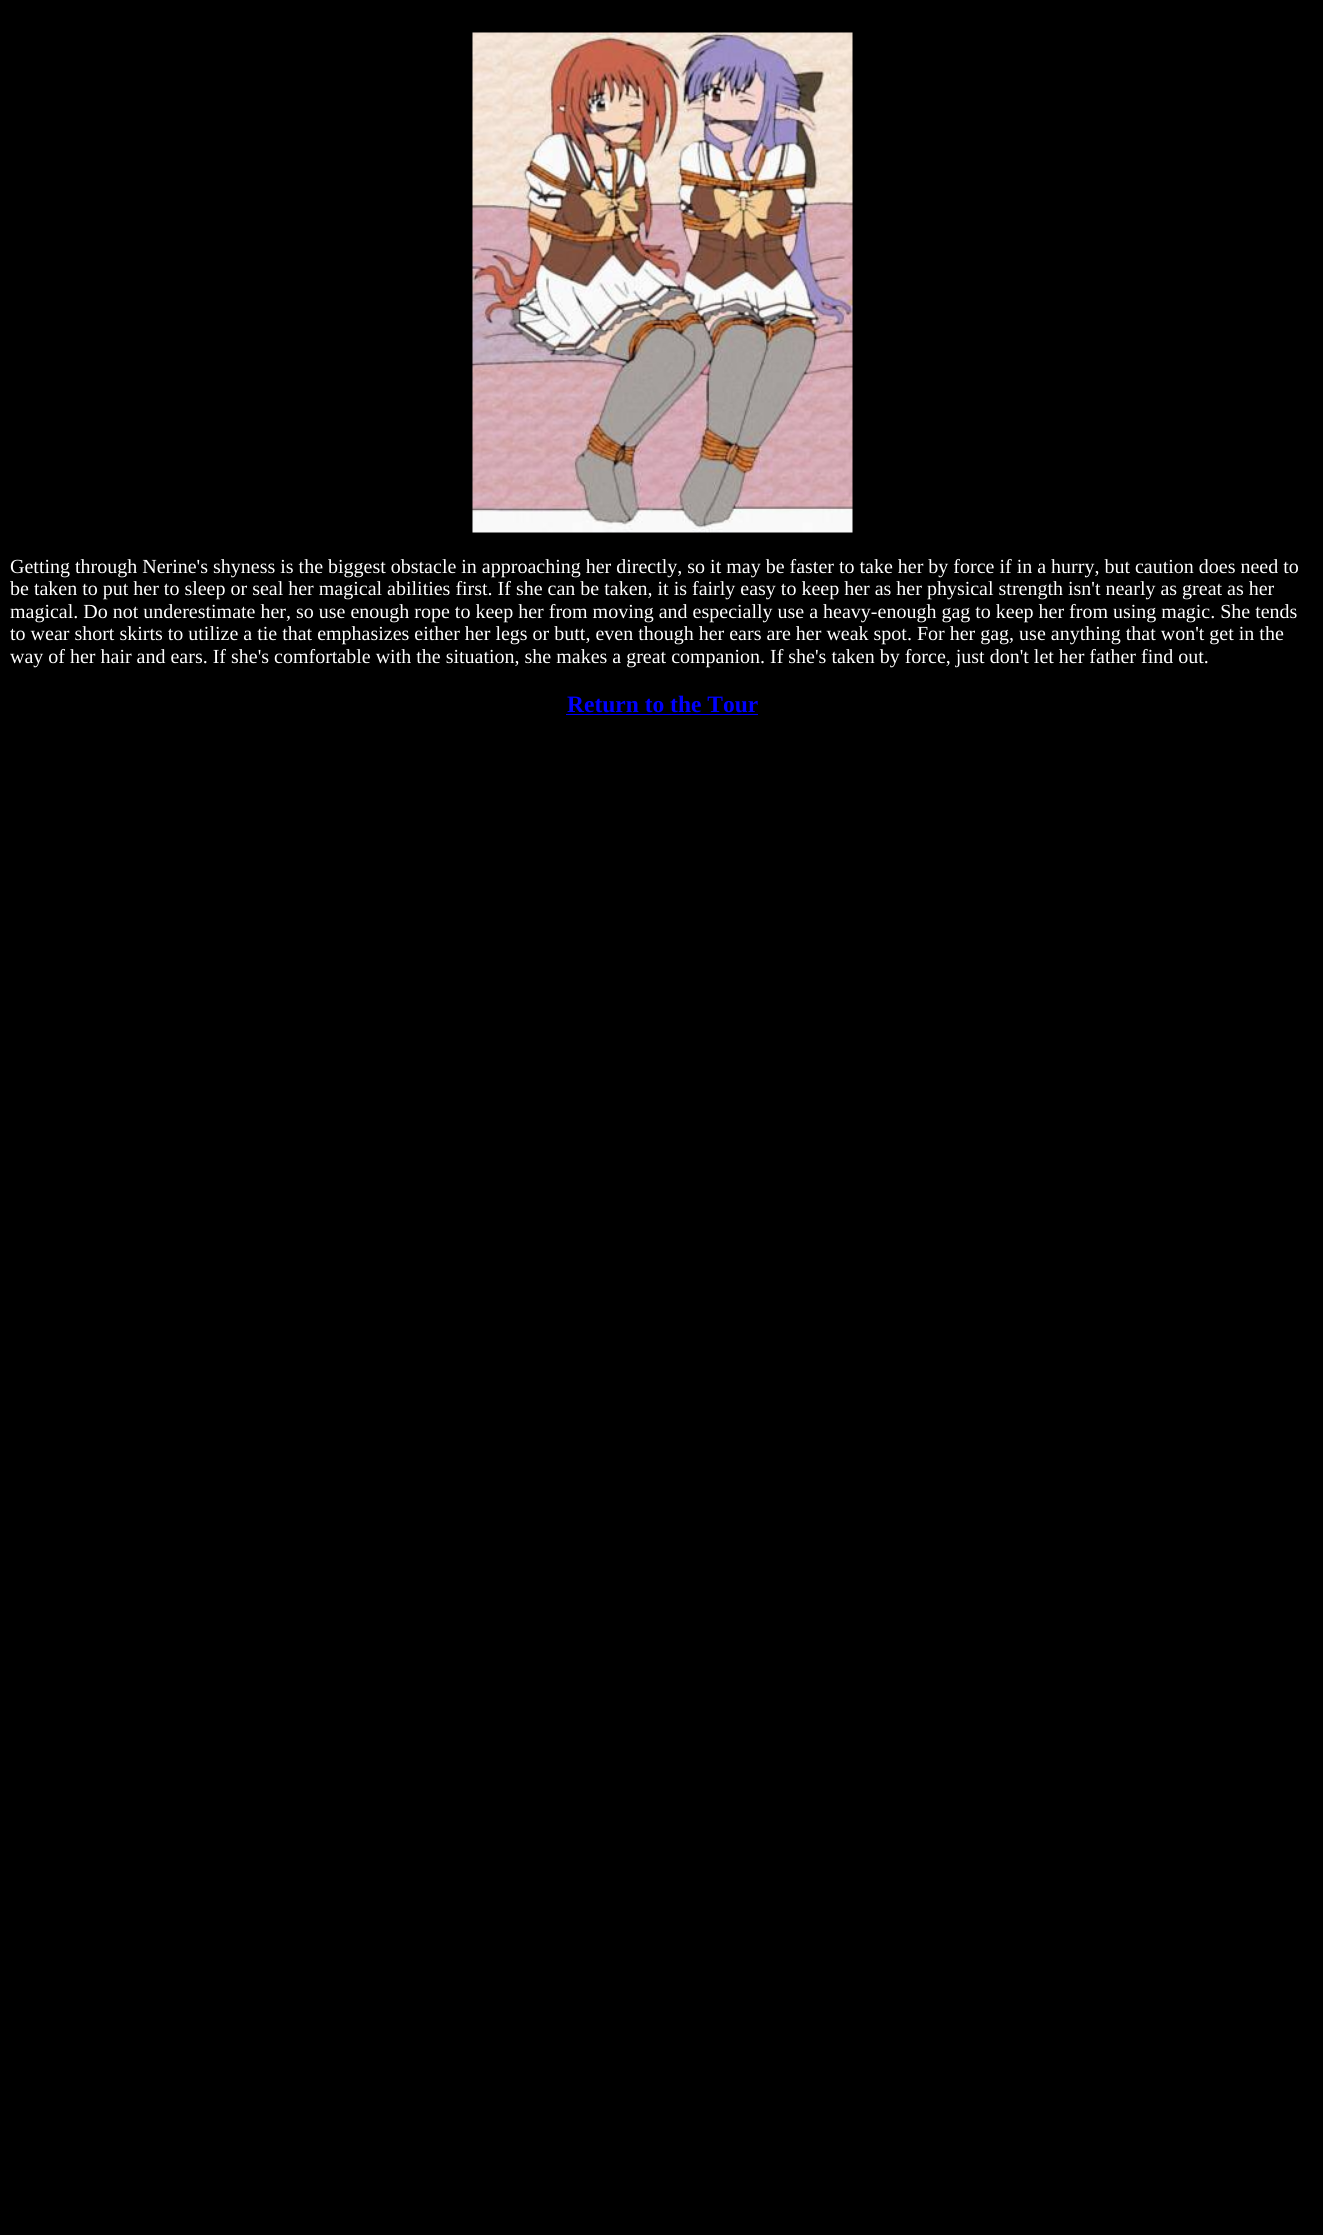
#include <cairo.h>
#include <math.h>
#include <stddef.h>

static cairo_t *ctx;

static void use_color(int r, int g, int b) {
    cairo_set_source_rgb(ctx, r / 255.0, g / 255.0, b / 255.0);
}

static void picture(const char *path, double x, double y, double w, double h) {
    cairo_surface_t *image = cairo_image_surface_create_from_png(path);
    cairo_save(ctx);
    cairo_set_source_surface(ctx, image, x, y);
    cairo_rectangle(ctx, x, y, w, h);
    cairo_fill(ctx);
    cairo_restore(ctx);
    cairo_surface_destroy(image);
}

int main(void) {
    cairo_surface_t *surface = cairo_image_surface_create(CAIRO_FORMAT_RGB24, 1323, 2235);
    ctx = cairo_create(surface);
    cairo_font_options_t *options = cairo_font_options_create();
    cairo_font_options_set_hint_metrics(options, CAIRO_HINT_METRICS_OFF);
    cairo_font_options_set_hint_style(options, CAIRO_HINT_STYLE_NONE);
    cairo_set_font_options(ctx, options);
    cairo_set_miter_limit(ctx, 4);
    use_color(0, 0, 0);
    cairo_paint(ctx);
    picture("img1.png", 472, 32, 381, 501);
    cairo_select_font_face(ctx, "Liberation Serif", CAIRO_FONT_SLANT_NORMAL, CAIRO_FONT_WEIGHT_NORMAL);
    cairo_set_font_size(ctx, 20);
    use_color(255, 255, 255);
    cairo_move_to(ctx, 10, 573);
    cairo_show_text(ctx, "Getting through Nerine's shyness is the biggest obstacle in approaching her directly, so it may be faster to take her by force if in a hurry, but caution does need to");
    cairo_move_to(ctx, 10, 595);
    cairo_show_text(ctx, "be taken to put her to sleep or seal her magical abilities first. If she can be taken, it is fairly easy to keep her as her physical strength isn't nearly as great as her");
    cairo_move_to(ctx, 10, 618);
    cairo_show_text(ctx, "magical. Do not underestimate her, so use enough rope to keep her from moving and especially use a heavy-enough gag to keep her from using magic. She tends");
    cairo_move_to(ctx, 10, 640);
    cairo_show_text(ctx, "to wear short skirts to utilize a tie that emphasizes either her legs or butt, even though her ears are her weak spot. For her gag, use anything that won't get in the");
    cairo_move_to(ctx, 10, 663);
    cairo_show_text(ctx, "way of her hair and ears. If she's comfortable with the situation, she makes a great companion. If she's taken by force, just don't let her father find out.");
    cairo_select_font_face(ctx, "Liberation Serif", CAIRO_FONT_SLANT_NORMAL, CAIRO_FONT_WEIGHT_BOLD);
    cairo_set_font_size(ctx, 23.5);
    use_color(0, 0, 255);
    cairo_move_to(ctx, 567, 712);
    cairo_show_text(ctx, "Return to the Tour");
    cairo_rectangle(ctx, 566, 714, 192, 1);
    cairo_fill(ctx);
    cairo_surface_write_to_png(surface, "result.png");
    cairo_font_options_destroy(options);
    cairo_destroy(ctx);
    cairo_surface_destroy(surface);
    return 0;
}
